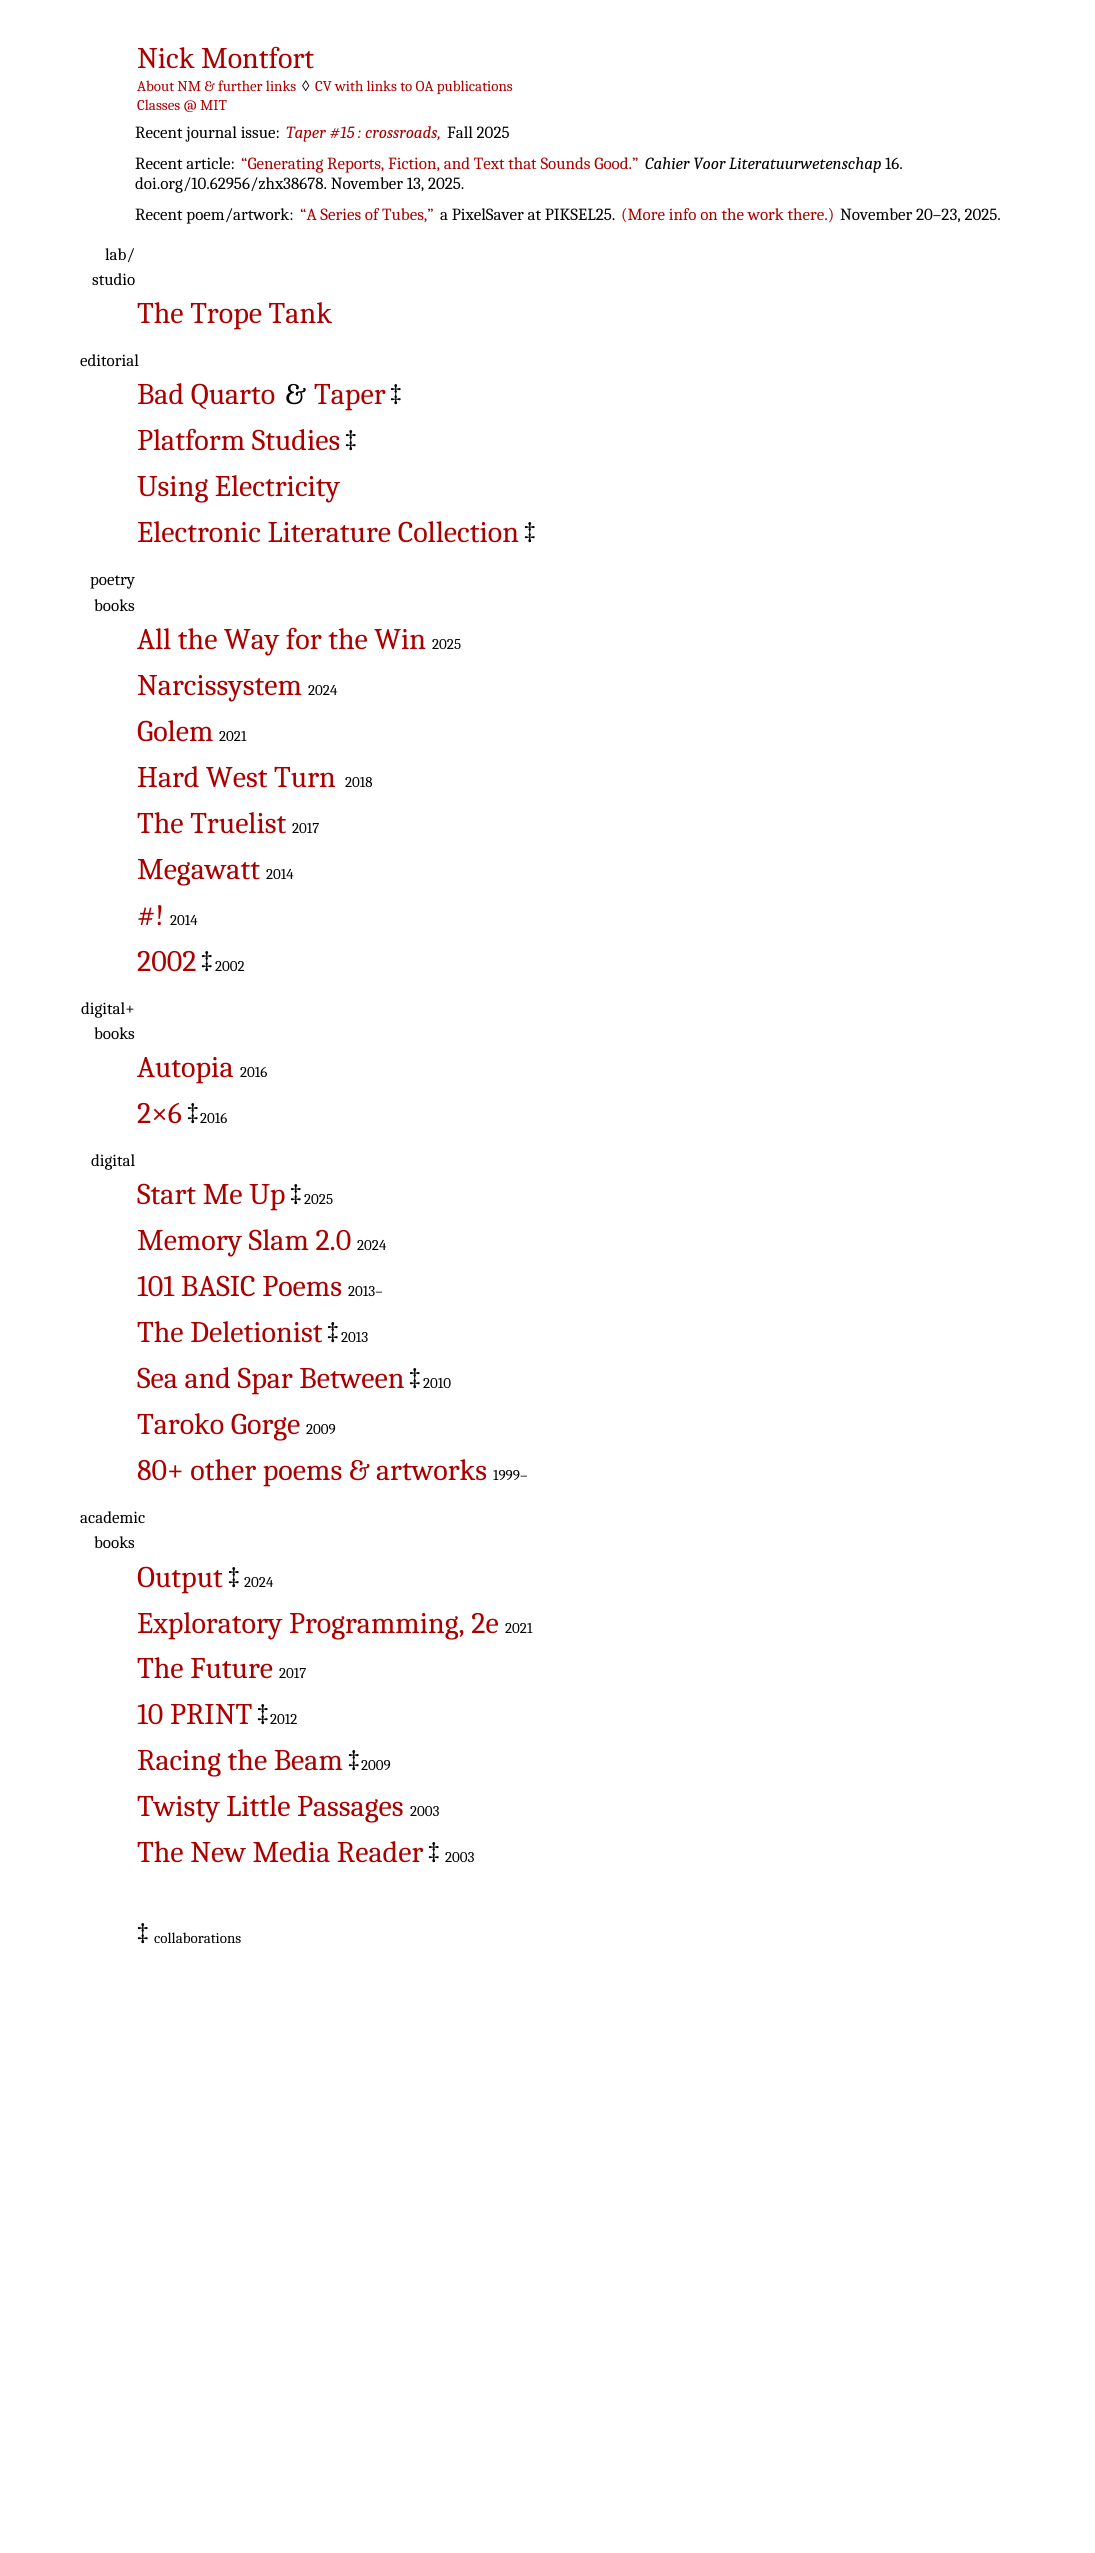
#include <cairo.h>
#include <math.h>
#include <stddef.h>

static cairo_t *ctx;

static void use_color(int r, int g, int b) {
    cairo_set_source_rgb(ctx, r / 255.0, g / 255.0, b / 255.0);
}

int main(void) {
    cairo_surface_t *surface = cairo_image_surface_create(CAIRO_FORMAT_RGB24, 1095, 2553);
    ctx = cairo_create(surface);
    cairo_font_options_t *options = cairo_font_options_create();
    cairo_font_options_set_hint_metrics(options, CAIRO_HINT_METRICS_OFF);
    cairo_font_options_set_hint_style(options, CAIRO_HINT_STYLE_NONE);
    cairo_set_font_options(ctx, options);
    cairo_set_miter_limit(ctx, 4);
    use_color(255, 255, 255);
    cairo_paint(ctx);
    cairo_select_font_face(ctx, "Caladea", CAIRO_FONT_SLANT_NORMAL, CAIRO_FONT_WEIGHT_NORMAL);
    cairo_set_font_size(ctx, 30);
    use_color(170, 0, 0);
    cairo_move_to(ctx, 137, 68);
    cairo_show_text(ctx, "Nick Montfort");
    cairo_set_font_size(ctx, 15);
    cairo_move_to(ctx, 137, 91);
    cairo_show_text(ctx, "About NM & further links");
    cairo_select_font_face(ctx, "Liberation Serif", CAIRO_FONT_SLANT_NORMAL, CAIRO_FONT_WEIGHT_NORMAL);
    use_color(0, 0, 0);
    cairo_move_to(ctx, 302, 91);
    cairo_show_text(ctx, "◊");
    cairo_select_font_face(ctx, "Caladea", CAIRO_FONT_SLANT_NORMAL, CAIRO_FONT_WEIGHT_NORMAL);
    use_color(170, 0, 0);
    cairo_move_to(ctx, 315, 91);
    cairo_show_text(ctx, "CV with links to OA publications");
    cairo_move_to(ctx, 137, 110);
    cairo_show_text(ctx, "Classes @ MIT");
    cairo_set_font_size(ctx, 17);
    use_color(0, 0, 0);
    cairo_move_to(ctx, 135, 138);
    cairo_show_text(ctx, "Recent journal issue:");
    cairo_select_font_face(ctx, "Caladea", CAIRO_FONT_SLANT_ITALIC, CAIRO_FONT_WEIGHT_NORMAL);
    use_color(170, 0, 0);
    cairo_move_to(ctx, 286, 138);
    cairo_show_text(ctx, "Taper #15 : crossroads,");
    cairo_select_font_face(ctx, "Caladea", CAIRO_FONT_SLANT_NORMAL, CAIRO_FONT_WEIGHT_NORMAL);
    use_color(0, 0, 0);
    cairo_move_to(ctx, 447, 138);
    cairo_show_text(ctx, "Fall 2025");
    cairo_move_to(ctx, 135, 169);
    cairo_show_text(ctx, "Recent article:");
    use_color(170, 0, 0);
    cairo_move_to(ctx, 241, 169);
    cairo_show_text(ctx, "“Generating Reports, Fiction, and Text that Sounds Good.”");
    cairo_select_font_face(ctx, "Caladea", CAIRO_FONT_SLANT_ITALIC, CAIRO_FONT_WEIGHT_NORMAL);
    use_color(0, 0, 0);
    cairo_move_to(ctx, 645, 169);
    cairo_show_text(ctx, "Cahier Voor Literatuurwetenschap");
    cairo_select_font_face(ctx, "Caladea", CAIRO_FONT_SLANT_NORMAL, CAIRO_FONT_WEIGHT_NORMAL);
    cairo_move_to(ctx, 885, 169);
    cairo_show_text(ctx, "16.");
    cairo_move_to(ctx, 135, 189);
    cairo_show_text(ctx, "doi.org/10.62956/zhx38678. November 13, 2025.");
    cairo_move_to(ctx, 135, 220);
    cairo_show_text(ctx, "Recent poem/artwork:");
    use_color(170, 0, 0);
    cairo_move_to(ctx, 300, 220);
    cairo_show_text(ctx, "“A Series of Tubes,”");
    use_color(0, 0, 0);
    cairo_move_to(ctx, 440, 220);
    cairo_show_text(ctx, "a PixelSaver at PIKSEL25.");
    use_color(170, 0, 0);
    cairo_move_to(ctx, 621, 220);
    cairo_show_text(ctx, "(More info on the work there.)");
    use_color(0, 0, 0);
    cairo_move_to(ctx, 840, 220);
    cairo_show_text(ctx, "November 20–23, 2025.");
    cairo_move_to(ctx, 105, 260);
    cairo_show_text(ctx, "lab/");
    cairo_move_to(ctx, 92, 285);
    cairo_show_text(ctx, "studio");
    cairo_set_font_size(ctx, 30);
    use_color(170, 0, 0);
    cairo_move_to(ctx, 137, 323);
    cairo_show_text(ctx, "The Trope Tank");
    cairo_set_font_size(ctx, 17);
    use_color(0, 0, 0);
    cairo_move_to(ctx, 80, 366);
    cairo_show_text(ctx, "editorial");
    cairo_set_font_size(ctx, 30);
    use_color(170, 0, 0);
    cairo_move_to(ctx, 137, 404);
    cairo_show_text(ctx, "Bad Quarto");
    use_color(0, 0, 0);
    cairo_move_to(ctx, 285, 404);
    cairo_show_text(ctx, "&");
    use_color(170, 0, 0);
    cairo_move_to(ctx, 314, 404);
    cairo_show_text(ctx, "Taper");
    use_color(0, 0, 0);
    cairo_move_to(ctx, 388, 404);
    cairo_show_text(ctx, "‡");
    use_color(170, 0, 0);
    cairo_move_to(ctx, 137, 450);
    cairo_show_text(ctx, "Platform Studies");
    use_color(0, 0, 0);
    cairo_move_to(ctx, 343, 450);
    cairo_show_text(ctx, "‡");
    use_color(170, 0, 0);
    cairo_move_to(ctx, 137, 496);
    cairo_show_text(ctx, "Using Electricity");
    cairo_move_to(ctx, 137, 542);
    cairo_show_text(ctx, "Electronic Literature Collection");
    use_color(0, 0, 0);
    cairo_move_to(ctx, 522, 542);
    cairo_show_text(ctx, "‡");
    cairo_set_font_size(ctx, 17);
    cairo_move_to(ctx, 90, 585);
    cairo_show_text(ctx, "poetry");
    cairo_move_to(ctx, 94, 611);
    cairo_show_text(ctx, "books");
    cairo_set_font_size(ctx, 30);
    use_color(170, 0, 0);
    cairo_move_to(ctx, 137, 649);
    cairo_show_text(ctx, "All the Way for the Win");
    cairo_set_font_size(ctx, 15);
    use_color(0, 0, 0);
    cairo_move_to(ctx, 432, 649);
    cairo_show_text(ctx, "2025");
    cairo_set_font_size(ctx, 30);
    use_color(170, 0, 0);
    cairo_move_to(ctx, 137, 695);
    cairo_show_text(ctx, "Narcissystem");
    cairo_set_font_size(ctx, 15);
    use_color(0, 0, 0);
    cairo_move_to(ctx, 308, 695);
    cairo_show_text(ctx, "2024");
    cairo_set_font_size(ctx, 30);
    use_color(170, 0, 0);
    cairo_move_to(ctx, 137, 741);
    cairo_show_text(ctx, "Golem");
    cairo_set_font_size(ctx, 15);
    use_color(0, 0, 0);
    cairo_move_to(ctx, 219, 741);
    cairo_show_text(ctx, "2021");
    cairo_set_font_size(ctx, 30);
    use_color(170, 0, 0);
    cairo_move_to(ctx, 137, 787);
    cairo_show_text(ctx, "Hard West Turn");
    cairo_set_font_size(ctx, 15);
    use_color(0, 0, 0);
    cairo_move_to(ctx, 345, 787);
    cairo_show_text(ctx, "2018");
    cairo_set_font_size(ctx, 30);
    use_color(170, 0, 0);
    cairo_move_to(ctx, 137, 833);
    cairo_show_text(ctx, "The Truelist");
    cairo_set_font_size(ctx, 15);
    use_color(0, 0, 0);
    cairo_move_to(ctx, 292, 833);
    cairo_show_text(ctx, "2017");
    cairo_set_font_size(ctx, 30);
    use_color(170, 0, 0);
    cairo_move_to(ctx, 137, 879);
    cairo_show_text(ctx, "Megawatt");
    cairo_set_font_size(ctx, 15);
    use_color(0, 0, 0);
    cairo_move_to(ctx, 266, 879);
    cairo_show_text(ctx, "2014");
    cairo_set_font_size(ctx, 30);
    use_color(170, 0, 0);
    cairo_move_to(ctx, 137, 925);
    cairo_show_text(ctx, "#!");
    cairo_set_font_size(ctx, 15);
    use_color(0, 0, 0);
    cairo_move_to(ctx, 170, 925);
    cairo_show_text(ctx, "2014");
    cairo_set_font_size(ctx, 30);
    use_color(170, 0, 0);
    cairo_move_to(ctx, 137, 971);
    cairo_show_text(ctx, "2002");
    use_color(0, 0, 0);
    cairo_move_to(ctx, 199, 971);
    cairo_show_text(ctx, "‡");
    cairo_set_font_size(ctx, 15);
    cairo_move_to(ctx, 215, 971);
    cairo_show_text(ctx, "2002");
    cairo_set_font_size(ctx, 17);
    cairo_move_to(ctx, 81, 1014);
    cairo_show_text(ctx, "digital+");
    cairo_move_to(ctx, 94, 1039);
    cairo_show_text(ctx, "books");
    cairo_set_font_size(ctx, 30);
    use_color(170, 0, 0);
    cairo_move_to(ctx, 137, 1077);
    cairo_show_text(ctx, "Autopia");
    cairo_set_font_size(ctx, 15);
    use_color(0, 0, 0);
    cairo_move_to(ctx, 240, 1077);
    cairo_show_text(ctx, "2016");
    cairo_set_font_size(ctx, 30);
    use_color(170, 0, 0);
    cairo_move_to(ctx, 137, 1123);
    cairo_show_text(ctx, "2×6");
    use_color(0, 0, 0);
    cairo_move_to(ctx, 185, 1123);
    cairo_show_text(ctx, "‡");
    cairo_set_font_size(ctx, 15);
    cairo_move_to(ctx, 200, 1123);
    cairo_show_text(ctx, "2016");
    cairo_set_font_size(ctx, 17);
    cairo_move_to(ctx, 91, 1166);
    cairo_show_text(ctx, "digital");
    cairo_set_font_size(ctx, 30);
    use_color(170, 0, 0);
    cairo_move_to(ctx, 137, 1204);
    cairo_show_text(ctx, "Start Me Up");
    use_color(0, 0, 0);
    cairo_move_to(ctx, 288, 1204);
    cairo_show_text(ctx, "‡");
    cairo_set_font_size(ctx, 15);
    cairo_move_to(ctx, 304, 1204);
    cairo_show_text(ctx, "2025");
    cairo_set_font_size(ctx, 30);
    use_color(170, 0, 0);
    cairo_move_to(ctx, 137, 1250);
    cairo_show_text(ctx, "Memory Slam 2.0");
    cairo_set_font_size(ctx, 15);
    use_color(0, 0, 0);
    cairo_move_to(ctx, 357, 1250);
    cairo_show_text(ctx, "2024");
    cairo_set_font_size(ctx, 30);
    use_color(170, 0, 0);
    cairo_move_to(ctx, 137, 1296);
    cairo_show_text(ctx, "101 BASIC Poems");
    cairo_set_font_size(ctx, 15);
    use_color(0, 0, 0);
    cairo_move_to(ctx, 348, 1296);
    cairo_show_text(ctx, "2013–");
    cairo_set_font_size(ctx, 30);
    use_color(170, 0, 0);
    cairo_move_to(ctx, 137, 1342);
    cairo_show_text(ctx, "The Deletionist");
    use_color(0, 0, 0);
    cairo_move_to(ctx, 325, 1342);
    cairo_show_text(ctx, "‡");
    cairo_set_font_size(ctx, 15);
    cairo_move_to(ctx, 341, 1342);
    cairo_show_text(ctx, "2013");
    cairo_set_font_size(ctx, 30);
    use_color(170, 0, 0);
    cairo_move_to(ctx, 137, 1388);
    cairo_show_text(ctx, "Sea and Spar Between");
    use_color(0, 0, 0);
    cairo_move_to(ctx, 407, 1388);
    cairo_show_text(ctx, "‡");
    cairo_set_font_size(ctx, 15);
    cairo_move_to(ctx, 423, 1388);
    cairo_show_text(ctx, "2010");
    cairo_set_font_size(ctx, 30);
    use_color(170, 0, 0);
    cairo_move_to(ctx, 137, 1434);
    cairo_show_text(ctx, "Taroko Gorge");
    cairo_set_font_size(ctx, 15);
    use_color(0, 0, 0);
    cairo_move_to(ctx, 306, 1434);
    cairo_show_text(ctx, "2009");
    cairo_set_font_size(ctx, 30);
    use_color(170, 0, 0);
    cairo_move_to(ctx, 137, 1480);
    cairo_show_text(ctx, "80+ other poems & artworks");
    cairo_set_font_size(ctx, 15);
    use_color(0, 0, 0);
    cairo_move_to(ctx, 493, 1480);
    cairo_show_text(ctx, "1999–");
    cairo_set_font_size(ctx, 17);
    cairo_move_to(ctx, 80, 1523);
    cairo_show_text(ctx, "academic");
    cairo_move_to(ctx, 94, 1548);
    cairo_show_text(ctx, "books");
    cairo_set_font_size(ctx, 30);
    use_color(170, 0, 0);
    cairo_move_to(ctx, 137, 1587);
    cairo_show_text(ctx, "Output");
    use_color(0, 0, 0);
    cairo_move_to(ctx, 226, 1587);
    cairo_show_text(ctx, "‡");
    cairo_set_font_size(ctx, 15);
    cairo_move_to(ctx, 244, 1587);
    cairo_show_text(ctx, "2024");
    cairo_set_font_size(ctx, 30);
    use_color(170, 0, 0);
    cairo_move_to(ctx, 137, 1633);
    cairo_show_text(ctx, "Exploratory Programming, 2e");
    cairo_set_font_size(ctx, 15);
    use_color(0, 0, 0);
    cairo_move_to(ctx, 505, 1633);
    cairo_show_text(ctx, "2021");
    cairo_set_font_size(ctx, 30);
    use_color(170, 0, 0);
    cairo_move_to(ctx, 137, 1678);
    cairo_show_text(ctx, "The Future");
    cairo_set_font_size(ctx, 15);
    use_color(0, 0, 0);
    cairo_move_to(ctx, 279, 1678);
    cairo_show_text(ctx, "2017");
    cairo_set_font_size(ctx, 30);
    use_color(170, 0, 0);
    cairo_move_to(ctx, 137, 1724);
    cairo_show_text(ctx, "10 PRINT");
    use_color(0, 0, 0);
    cairo_move_to(ctx, 255, 1724);
    cairo_show_text(ctx, "‡");
    cairo_set_font_size(ctx, 15);
    cairo_move_to(ctx, 270, 1724);
    cairo_show_text(ctx, "2012");
    cairo_set_font_size(ctx, 30);
    use_color(170, 0, 0);
    cairo_move_to(ctx, 137, 1770);
    cairo_show_text(ctx, "Racing the Beam");
    use_color(0, 0, 0);
    cairo_move_to(ctx, 346, 1770);
    cairo_show_text(ctx, "‡");
    cairo_set_font_size(ctx, 15);
    cairo_move_to(ctx, 361, 1770);
    cairo_show_text(ctx, "2009");
    cairo_set_font_size(ctx, 30);
    use_color(170, 0, 0);
    cairo_move_to(ctx, 137, 1816);
    cairo_show_text(ctx, "Twisty Little Passages");
    cairo_set_font_size(ctx, 15);
    use_color(0, 0, 0);
    cairo_move_to(ctx, 410, 1816);
    cairo_show_text(ctx, "2003");
    cairo_set_font_size(ctx, 30);
    use_color(170, 0, 0);
    cairo_move_to(ctx, 137, 1862);
    cairo_show_text(ctx, "The New Media Reader");
    use_color(0, 0, 0);
    cairo_move_to(ctx, 426, 1862);
    cairo_show_text(ctx, "‡");
    cairo_set_font_size(ctx, 15);
    cairo_move_to(ctx, 445, 1862);
    cairo_show_text(ctx, "2003");
    cairo_set_font_size(ctx, 30);
    cairo_move_to(ctx, 135, 1943);
    cairo_show_text(ctx, "‡");
    cairo_set_font_size(ctx, 15);
    cairo_move_to(ctx, 154, 1943);
    cairo_show_text(ctx, "collaborations");
    cairo_surface_write_to_png(surface, "result.png");
    cairo_font_options_destroy(options);
    cairo_destroy(ctx);
    cairo_surface_destroy(surface);
    return 0;
}
